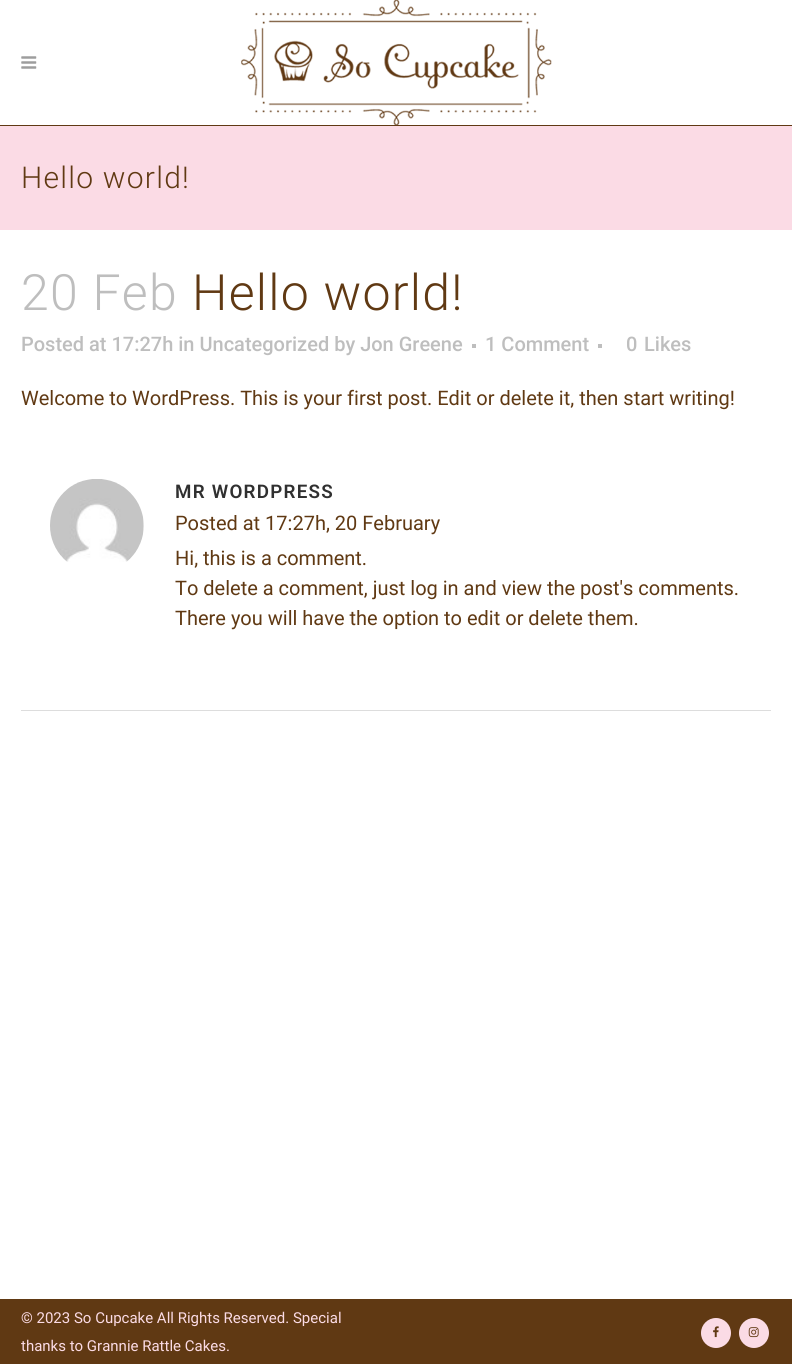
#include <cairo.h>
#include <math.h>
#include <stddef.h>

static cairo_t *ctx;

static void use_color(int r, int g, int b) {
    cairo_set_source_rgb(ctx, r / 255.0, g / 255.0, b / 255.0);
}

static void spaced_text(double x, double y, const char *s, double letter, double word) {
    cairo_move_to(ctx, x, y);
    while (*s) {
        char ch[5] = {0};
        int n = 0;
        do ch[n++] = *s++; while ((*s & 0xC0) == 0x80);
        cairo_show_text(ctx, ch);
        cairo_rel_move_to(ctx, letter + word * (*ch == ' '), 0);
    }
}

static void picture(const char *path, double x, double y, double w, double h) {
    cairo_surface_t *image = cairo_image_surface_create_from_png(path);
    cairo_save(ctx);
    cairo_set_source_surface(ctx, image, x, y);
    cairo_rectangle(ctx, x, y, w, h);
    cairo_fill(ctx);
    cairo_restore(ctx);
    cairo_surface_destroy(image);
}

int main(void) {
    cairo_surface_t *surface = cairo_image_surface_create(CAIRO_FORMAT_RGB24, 792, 1364);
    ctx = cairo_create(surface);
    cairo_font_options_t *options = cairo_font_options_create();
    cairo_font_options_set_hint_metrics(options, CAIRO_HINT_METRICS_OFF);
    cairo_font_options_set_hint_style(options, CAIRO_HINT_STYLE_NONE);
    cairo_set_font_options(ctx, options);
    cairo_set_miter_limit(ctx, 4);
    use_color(255, 255, 255);
    cairo_paint(ctx);
    use_color(96, 57, 19);
    cairo_rectangle(ctx, 0, 125, 792, 1);
    cairo_fill(ctx);
    picture("img1.png", 21, 56, 16, 13);
    picture("img2.png", 241, 0, 311, 125);
    use_color(251, 219, 229);
    cairo_rectangle(ctx, 0, 126, 792, 104);
    cairo_fill(ctx);
    cairo_select_font_face(ctx, "Roboto Light", CAIRO_FONT_SLANT_NORMAL, CAIRO_FONT_WEIGHT_NORMAL);
    cairo_set_font_size(ctx, 30);
    use_color(96, 57, 19);
    spaced_text(21, 188, "Hello world!", 1.25, 0);
    cairo_set_font_size(ctx, 50);
    use_color(190, 190, 190);
    spaced_text(21, 310, "20 Feb", 1.25, 0);
    use_color(96, 57, 19);
    spaced_text(192, 310, "Hello world!", 1.25, 0);
    cairo_select_font_face(ctx, "Roboto Medium", CAIRO_FONT_SLANT_NORMAL, CAIRO_FONT_WEIGHT_NORMAL);
    cairo_set_font_size(ctx, 20);
    use_color(190, 190, 190);
    cairo_move_to(ctx, 21, 351);
    cairo_show_text(ctx, "Posted at 17:27h in Uncategorized by Jon Greene");
    cairo_rectangle(ctx, 472, 344, 4, 4);
    cairo_fill(ctx);
    cairo_move_to(ctx, 485, 351);
    cairo_show_text(ctx, "1 Comment");
    cairo_rectangle(ctx, 598, 344, 4, 4);
    cairo_fill(ctx);
    cairo_move_to(ctx, 626, 351);
    cairo_show_text(ctx, "0");
    cairo_move_to(ctx, 644, 351);
    cairo_show_text(ctx, "Likes");
    cairo_select_font_face(ctx, "Roboto", CAIRO_FONT_SLANT_NORMAL, CAIRO_FONT_WEIGHT_NORMAL);
    use_color(96, 57, 19);
    cairo_move_to(ctx, 21, 405);
    cairo_show_text(ctx, "Welcome to WordPress. This is your first post. Edit or delete it, then start writing!");
    picture("img3.png", 50, 479, 94, 83);
    cairo_select_font_face(ctx, "Roboto SemiBold", CAIRO_FONT_SLANT_NORMAL, CAIRO_FONT_WEIGHT_NORMAL);
    cairo_set_font_size(ctx, 18.75);
    use_color(48, 48, 48);
    spaced_text(175, 498, "MR WORDPRESS", 1.25, 0);
    cairo_select_font_face(ctx, "Roboto", CAIRO_FONT_SLANT_NORMAL, CAIRO_FONT_WEIGHT_NORMAL);
    cairo_set_font_size(ctx, 20);
    use_color(96, 57, 19);
    cairo_move_to(ctx, 175, 530);
    cairo_show_text(ctx, "Posted at 17:27h, 20 February");
    cairo_move_to(ctx, 175, 565);
    cairo_show_text(ctx, "Hi, this is a comment.");
    cairo_move_to(ctx, 175, 595);
    cairo_show_text(ctx, "To delete a comment, just log in and view the post's comments.");
    cairo_move_to(ctx, 175, 625);
    cairo_show_text(ctx, "There you will have the option to edit or delete them.");
    use_color(221, 221, 221);
    cairo_rectangle(ctx, 21, 710, 750, 1);
    cairo_fill(ctx);
    use_color(96, 57, 19);
    cairo_rectangle(ctx, 0, 1299, 792, 65);
    cairo_fill(ctx);
    cairo_set_font_size(ctx, 15);
    use_color(251, 219, 229);
    cairo_move_to(ctx, 21, 1323);
    cairo_show_text(ctx, "© 2023 So Cupcake All Rights Reserved. Special");
    cairo_move_to(ctx, 21, 1351);
    cairo_show_text(ctx, "thanks to Grannie Rattle Cakes.");
    cairo_new_path(ctx);
    cairo_arc(ctx, 716, 1333, 15, 0, 2 * M_PI);
    cairo_fill(ctx);
    picture("img4.png", 713, 1326, 6, 12);
    cairo_arc(ctx, 754, 1333, 15, 0, 2 * M_PI);
    cairo_fill(ctx);
    picture("img5.png", 748, 1327, 11, 11);
    cairo_surface_write_to_png(surface, "result.png");
    cairo_font_options_destroy(options);
    cairo_destroy(ctx);
    cairo_surface_destroy(surface);
    return 0;
}
